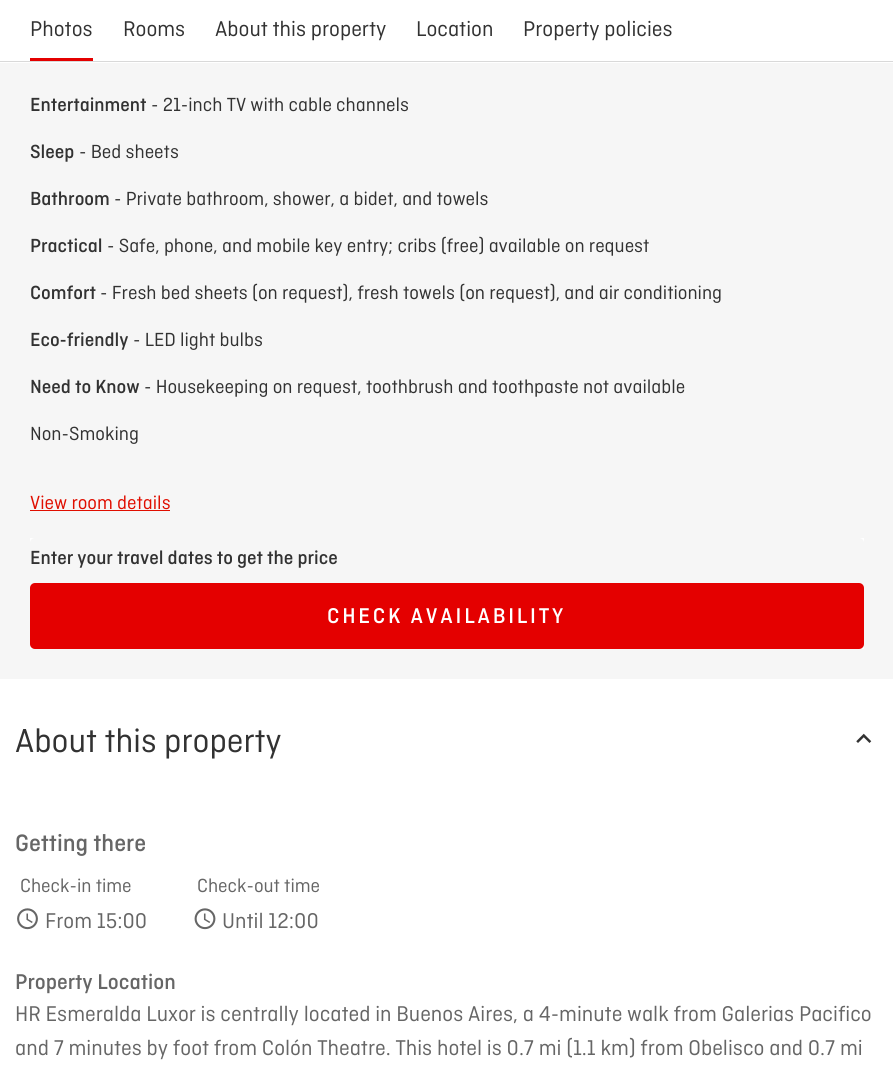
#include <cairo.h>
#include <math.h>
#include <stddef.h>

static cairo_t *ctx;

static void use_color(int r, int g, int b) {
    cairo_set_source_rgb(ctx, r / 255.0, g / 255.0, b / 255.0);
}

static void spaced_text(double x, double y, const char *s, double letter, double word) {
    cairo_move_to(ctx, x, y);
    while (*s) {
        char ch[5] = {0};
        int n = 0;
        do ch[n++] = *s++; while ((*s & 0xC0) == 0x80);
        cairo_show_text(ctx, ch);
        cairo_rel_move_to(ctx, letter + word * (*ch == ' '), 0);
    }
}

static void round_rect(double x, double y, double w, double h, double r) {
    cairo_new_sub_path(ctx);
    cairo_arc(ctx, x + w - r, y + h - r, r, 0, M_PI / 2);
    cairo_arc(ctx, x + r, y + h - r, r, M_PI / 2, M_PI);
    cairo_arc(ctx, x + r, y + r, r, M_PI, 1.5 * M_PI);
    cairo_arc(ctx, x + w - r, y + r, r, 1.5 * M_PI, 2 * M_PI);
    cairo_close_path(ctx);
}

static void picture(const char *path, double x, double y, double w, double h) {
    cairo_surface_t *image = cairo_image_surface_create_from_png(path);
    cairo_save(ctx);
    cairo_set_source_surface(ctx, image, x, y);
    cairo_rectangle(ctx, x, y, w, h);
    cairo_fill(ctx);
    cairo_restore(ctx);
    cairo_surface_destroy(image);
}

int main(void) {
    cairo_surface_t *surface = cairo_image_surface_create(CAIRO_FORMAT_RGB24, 893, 1067);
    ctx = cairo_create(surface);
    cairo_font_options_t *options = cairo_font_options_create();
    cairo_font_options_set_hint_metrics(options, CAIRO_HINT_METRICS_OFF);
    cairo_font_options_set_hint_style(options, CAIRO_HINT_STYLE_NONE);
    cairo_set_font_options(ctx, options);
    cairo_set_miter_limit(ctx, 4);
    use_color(255, 255, 255);
    cairo_paint(ctx);
    use_color(217, 217, 217);
    cairo_rectangle(ctx, 0, 61, 893, 1);
    cairo_fill(ctx);
    use_color(228, 0, 0);
    cairo_rectangle(ctx, 30, 58, 63, 3);
    cairo_fill(ctx);
    cairo_select_font_face(ctx, "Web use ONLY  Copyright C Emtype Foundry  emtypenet", CAIRO_FONT_SLANT_NORMAL, CAIRO_FONT_WEIGHT_NORMAL);
    cairo_set_font_size(ctx, 22.5);
    use_color(50, 50, 50);
    cairo_move_to(ctx, 30, 36);
    cairo_show_text(ctx, "Photos");
    cairo_move_to(ctx, 123, 36);
    cairo_show_text(ctx, "Rooms");
    cairo_move_to(ctx, 215, 36);
    cairo_show_text(ctx, "About this property");
    cairo_move_to(ctx, 416, 36);
    cairo_show_text(ctx, "Location");
    cairo_move_to(ctx, 523, 36);
    cairo_show_text(ctx, "Property policies");
    use_color(246, 246, 246);
    cairo_rectangle(ctx, 0, 63, 893, 616);
    cairo_fill(ctx);
    use_color(255, 255, 255);
    cairo_rectangle(ctx, 30, 538, 834, 111);
    cairo_fill(ctx);
    cairo_select_font_face(ctx, "Web use ONLY  Copyright C Emtype Foundry  emtypenet Medium", CAIRO_FONT_SLANT_NORMAL, CAIRO_FONT_WEIGHT_NORMAL);
    cairo_set_font_size(ctx, 20);
    use_color(50, 50, 50);
    cairo_move_to(ctx, 30, 111);
    cairo_show_text(ctx, "Entertainment");
    cairo_select_font_face(ctx, "Web use ONLY  Copyright C Emtype Foundry  emtypenet", CAIRO_FONT_SLANT_NORMAL, CAIRO_FONT_WEIGHT_NORMAL);
    cairo_move_to(ctx, 151, 111);
    cairo_show_text(ctx, "- 21-inch TV with cable channels");
    cairo_select_font_face(ctx, "Web use ONLY  Copyright C Emtype Foundry  emtypenet Medium", CAIRO_FONT_SLANT_NORMAL, CAIRO_FONT_WEIGHT_NORMAL);
    cairo_move_to(ctx, 30, 158);
    cairo_show_text(ctx, "Sleep");
    cairo_select_font_face(ctx, "Web use ONLY  Copyright C Emtype Foundry  emtypenet", CAIRO_FONT_SLANT_NORMAL, CAIRO_FONT_WEIGHT_NORMAL);
    cairo_move_to(ctx, 79, 158);
    cairo_show_text(ctx, "- Bed sheets");
    cairo_select_font_face(ctx, "Web use ONLY  Copyright C Emtype Foundry  emtypenet Medium", CAIRO_FONT_SLANT_NORMAL, CAIRO_FONT_WEIGHT_NORMAL);
    cairo_move_to(ctx, 30, 205);
    cairo_show_text(ctx, "Bathroom");
    cairo_select_font_face(ctx, "Web use ONLY  Copyright C Emtype Foundry  emtypenet", CAIRO_FONT_SLANT_NORMAL, CAIRO_FONT_WEIGHT_NORMAL);
    cairo_move_to(ctx, 114, 205);
    cairo_show_text(ctx, "- Private bathroom, shower, a bidet, and towels");
    cairo_select_font_face(ctx, "Web use ONLY  Copyright C Emtype Foundry  emtypenet Medium", CAIRO_FONT_SLANT_NORMAL, CAIRO_FONT_WEIGHT_NORMAL);
    cairo_move_to(ctx, 30, 252);
    cairo_show_text(ctx, "Practical");
    cairo_select_font_face(ctx, "Web use ONLY  Copyright C Emtype Foundry  emtypenet", CAIRO_FONT_SLANT_NORMAL, CAIRO_FONT_WEIGHT_NORMAL);
    cairo_move_to(ctx, 107, 252);
    cairo_show_text(ctx, "- Safe, phone, and mobile key entry; cribs (free) available on request");
    cairo_select_font_face(ctx, "Web use ONLY  Copyright C Emtype Foundry  emtypenet Medium", CAIRO_FONT_SLANT_NORMAL, CAIRO_FONT_WEIGHT_NORMAL);
    cairo_move_to(ctx, 30, 299);
    cairo_show_text(ctx, "Comfort");
    cairo_select_font_face(ctx, "Web use ONLY  Copyright C Emtype Foundry  emtypenet", CAIRO_FONT_SLANT_NORMAL, CAIRO_FONT_WEIGHT_NORMAL);
    cairo_move_to(ctx, 100, 299);
    cairo_show_text(ctx, "- Fresh bed sheets (on request), fresh towels (on request), and air conditioning");
    cairo_select_font_face(ctx, "Web use ONLY  Copyright C Emtype Foundry  emtypenet Medium", CAIRO_FONT_SLANT_NORMAL, CAIRO_FONT_WEIGHT_NORMAL);
    cairo_move_to(ctx, 30, 346);
    cairo_show_text(ctx, "Eco-friendly");
    cairo_select_font_face(ctx, "Web use ONLY  Copyright C Emtype Foundry  emtypenet", CAIRO_FONT_SLANT_NORMAL, CAIRO_FONT_WEIGHT_NORMAL);
    cairo_move_to(ctx, 133, 346);
    cairo_show_text(ctx, "- LED light bulbs");
    cairo_select_font_face(ctx, "Web use ONLY  Copyright C Emtype Foundry  emtypenet Medium", CAIRO_FONT_SLANT_NORMAL, CAIRO_FONT_WEIGHT_NORMAL);
    cairo_move_to(ctx, 30, 393);
    cairo_show_text(ctx, "Need to Know");
    cairo_select_font_face(ctx, "Web use ONLY  Copyright C Emtype Foundry  emtypenet", CAIRO_FONT_SLANT_NORMAL, CAIRO_FONT_WEIGHT_NORMAL);
    cairo_move_to(ctx, 144, 393);
    cairo_show_text(ctx, "- Housekeeping on request, toothbrush and toothpaste not available");
    cairo_move_to(ctx, 30, 440);
    cairo_show_text(ctx, "Non-Smoking");
    use_color(224, 14, 0);
    cairo_move_to(ctx, 30, 509);
    cairo_show_text(ctx, "View room details");
    cairo_rectangle(ctx, 30, 510, 140, 1);
    cairo_fill(ctx);
    use_color(246, 246, 246);
    round_rect(30, 538, 834, 111, 5);
    cairo_fill(ctx);
    cairo_select_font_face(ctx, "Web use ONLY  Copyright C Emtype Foundry  emtypenet Medium", CAIRO_FONT_SLANT_NORMAL, CAIRO_FONT_WEIGHT_NORMAL);
    use_color(50, 50, 50);
    cairo_move_to(ctx, 30, 564);
    cairo_show_text(ctx, "Enter your travel dates to get the price");
    use_color(228, 0, 0);
    round_rect(30, 583, 834, 66, 5);
    cairo_fill(ctx);
    cairo_set_font_size(ctx, 22.5);
    use_color(255, 255, 255);
    spaced_text(327, 623, "CHECK AVAILABILITY", 2.8, 0);
    cairo_select_font_face(ctx, "Web use ONLY  Copyright C Emtype Foundry  emtypenet", CAIRO_FONT_SLANT_NORMAL, CAIRO_FONT_WEIGHT_NORMAL);
    cairo_set_font_size(ctx, 35);
    use_color(50, 50, 50);
    cairo_move_to(ctx, 15, 752);
    cairo_show_text(ctx, "About this property");
    picture("img1.png", 856, 733, 16, 10);
    cairo_select_font_face(ctx, "Web use ONLY  Copyright C Emtype Foundry  emtypenet Medium", CAIRO_FONT_SLANT_NORMAL, CAIRO_FONT_WEIGHT_NORMAL);
    cairo_set_font_size(ctx, 25);
    use_color(102, 102, 102);
    cairo_move_to(ctx, 15, 851);
    cairo_show_text(ctx, "Getting there");
    cairo_select_font_face(ctx, "Web use ONLY  Copyright C Emtype Foundry  emtypenet", CAIRO_FONT_SLANT_NORMAL, CAIRO_FONT_WEIGHT_NORMAL);
    cairo_set_font_size(ctx, 20);
    cairo_move_to(ctx, 20, 892);
    cairo_show_text(ctx, "Check-in time");
    picture("img2.png", 17, 908, 21, 22);
    cairo_set_font_size(ctx, 22.5);
    cairo_move_to(ctx, 45, 928);
    cairo_show_text(ctx, "From 15:00");
    cairo_set_font_size(ctx, 20);
    cairo_move_to(ctx, 197, 892);
    cairo_show_text(ctx, "Check-out time");
    picture("img3.png", 194, 908, 22, 22);
    cairo_set_font_size(ctx, 22.5);
    cairo_move_to(ctx, 222, 928);
    cairo_show_text(ctx, "Until 12:00");
    cairo_select_font_face(ctx, "Web use ONLY  Copyright C Emtype Foundry  emtypenet Medium", CAIRO_FONT_SLANT_NORMAL, CAIRO_FONT_WEIGHT_NORMAL);
    cairo_move_to(ctx, 15, 989);
    cairo_show_text(ctx, "Property Location");
    cairo_select_font_face(ctx, "Web use ONLY  Copyright C Emtype Foundry  emtypenet", CAIRO_FONT_SLANT_NORMAL, CAIRO_FONT_WEIGHT_NORMAL);
    cairo_move_to(ctx, 15, 1021);
    cairo_show_text(ctx, "HR Esmeralda Luxor is centrally located in Buenos Aires, a 4-minute walk from Galerias Pacifico");
    cairo_move_to(ctx, 15, 1055);
    cairo_show_text(ctx, "and 7 minutes by foot from Colón Theatre. This hotel is 0.7 mi (1.1 km) from Obelisco and 0.7 mi");
    cairo_surface_write_to_png(surface, "result.png");
    cairo_font_options_destroy(options);
    cairo_destroy(ctx);
    cairo_surface_destroy(surface);
    return 0;
}
